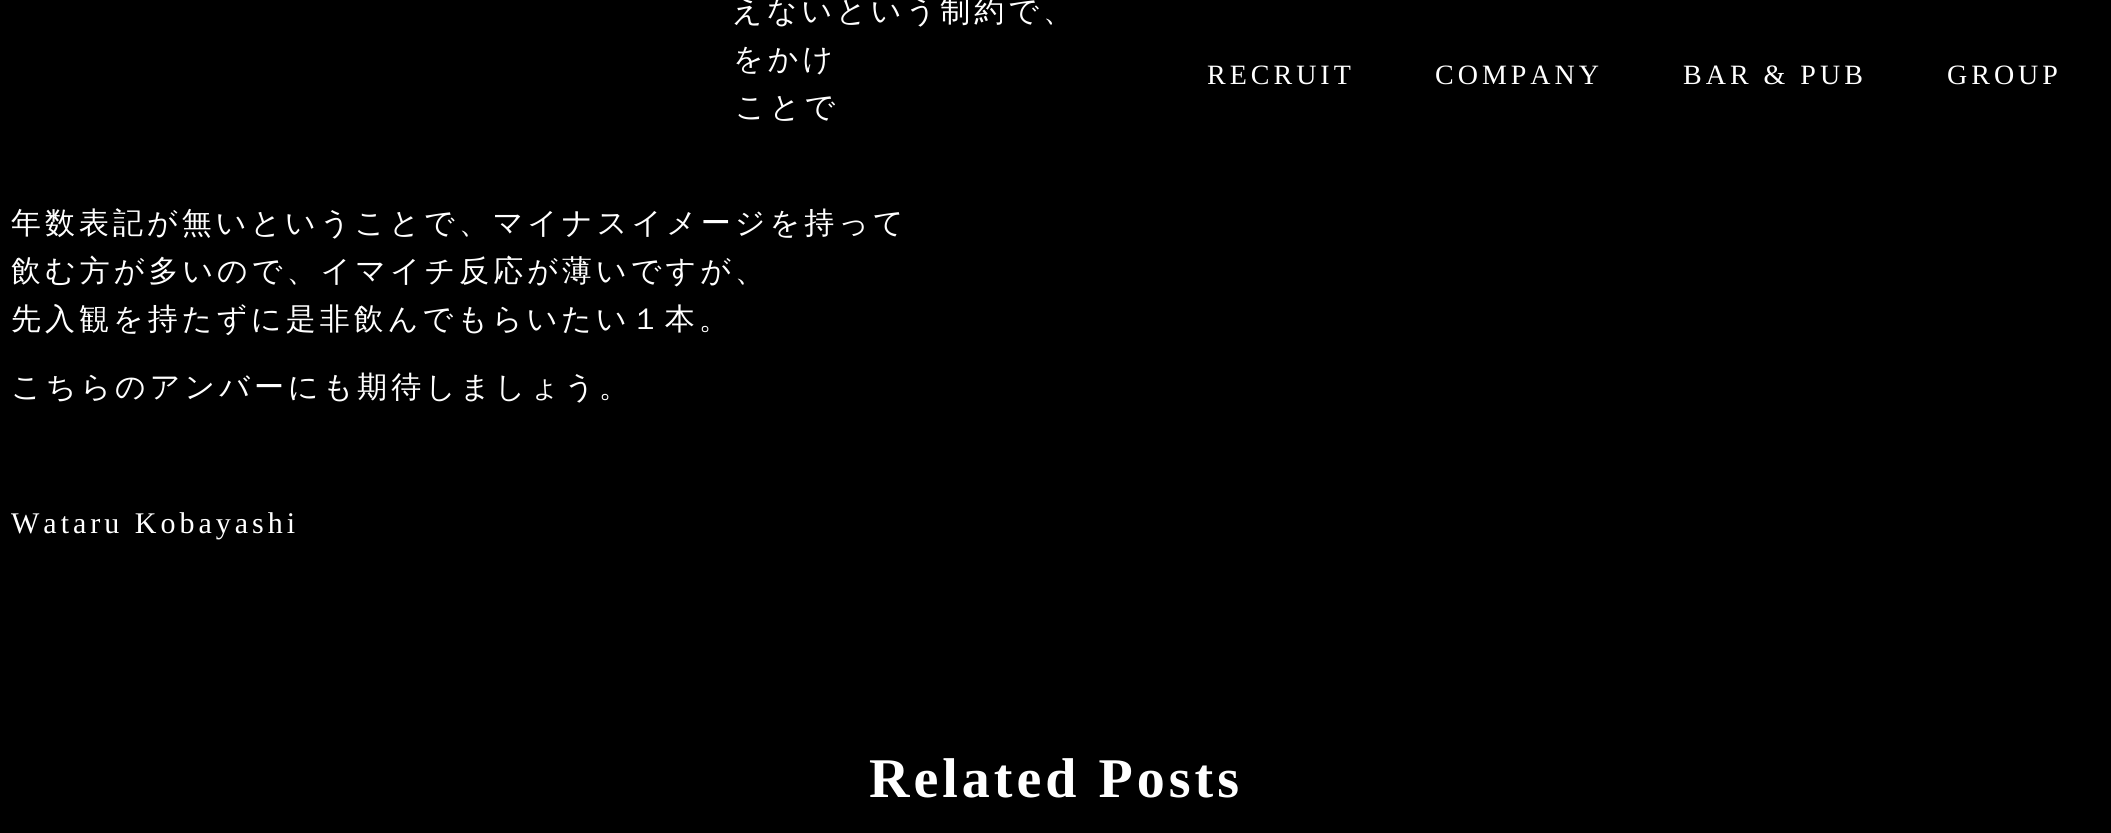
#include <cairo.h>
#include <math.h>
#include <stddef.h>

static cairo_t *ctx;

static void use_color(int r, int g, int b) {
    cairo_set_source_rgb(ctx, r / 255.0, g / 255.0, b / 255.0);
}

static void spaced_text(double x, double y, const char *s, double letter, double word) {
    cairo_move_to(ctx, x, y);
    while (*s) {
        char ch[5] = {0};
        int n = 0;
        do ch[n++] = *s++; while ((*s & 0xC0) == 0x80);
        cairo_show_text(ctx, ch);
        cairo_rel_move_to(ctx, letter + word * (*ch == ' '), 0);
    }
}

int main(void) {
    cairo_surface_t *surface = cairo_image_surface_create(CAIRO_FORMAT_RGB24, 2111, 833);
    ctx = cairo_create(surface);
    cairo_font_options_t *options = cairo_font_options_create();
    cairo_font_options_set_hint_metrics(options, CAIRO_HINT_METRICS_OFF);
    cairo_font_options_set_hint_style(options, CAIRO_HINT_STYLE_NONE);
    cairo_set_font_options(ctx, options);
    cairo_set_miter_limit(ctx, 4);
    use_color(0, 0, 0);
    cairo_paint(ctx);
    cairo_select_font_face(ctx, "WenQuanYi Zen Hei Medium", CAIRO_FONT_SLANT_NORMAL, CAIRO_FONT_WEIGHT_NORMAL);
    cairo_set_font_size(ctx, 30);
    use_color(255, 255, 255);
    spaced_text(732, 21, "えないという制約で、", 4, 0);
    spaced_text(733, 69, "をかけ", 4, 0);
    spaced_text(735, 117, "ことで", 4, 0);
    spaced_text(11, 233, "年数表記が無いということで、マイナスイメージを持って", 4, 0);
    spaced_text(11, 281, "飲む方が多いので、イマイチ反応が薄いですが、", 4, 0);
    spaced_text(11, 329, "先入観を持たずに是非飲んでもらいたい１本。", 4, 0);
    spaced_text(11, 397, "こちらのアンバーにも期待しましょう。", 4, 0);
    cairo_select_font_face(ctx, "Liberation Serif", CAIRO_FONT_SLANT_NORMAL, CAIRO_FONT_WEIGHT_NORMAL);
    spaced_text(11, 533, "Wataru Kobayashi", 4, 0);
    cairo_select_font_face(ctx, "Liberation Serif", CAIRO_FONT_SLANT_NORMAL, CAIRO_FONT_WEIGHT_BOLD);
    cairo_set_font_size(ctx, 56);
    spaced_text(869, 797, "Related Posts", 4, 0);
    cairo_select_font_face(ctx, "Liberation Serif", CAIRO_FONT_SLANT_NORMAL, CAIRO_FONT_WEIGHT_NORMAL);
    cairo_set_font_size(ctx, 28);
    spaced_text(1207, 84, "RECRUIT", 4, 0);
    spaced_text(1435, 84, "COMPANY", 4, 0);
    spaced_text(1683, 84, "BAR & PUB", 4, 0);
    spaced_text(1947, 84, "GROUP", 4, 0);
    cairo_surface_write_to_png(surface, "result.png");
    cairo_font_options_destroy(options);
    cairo_destroy(ctx);
    cairo_surface_destroy(surface);
    return 0;
}
